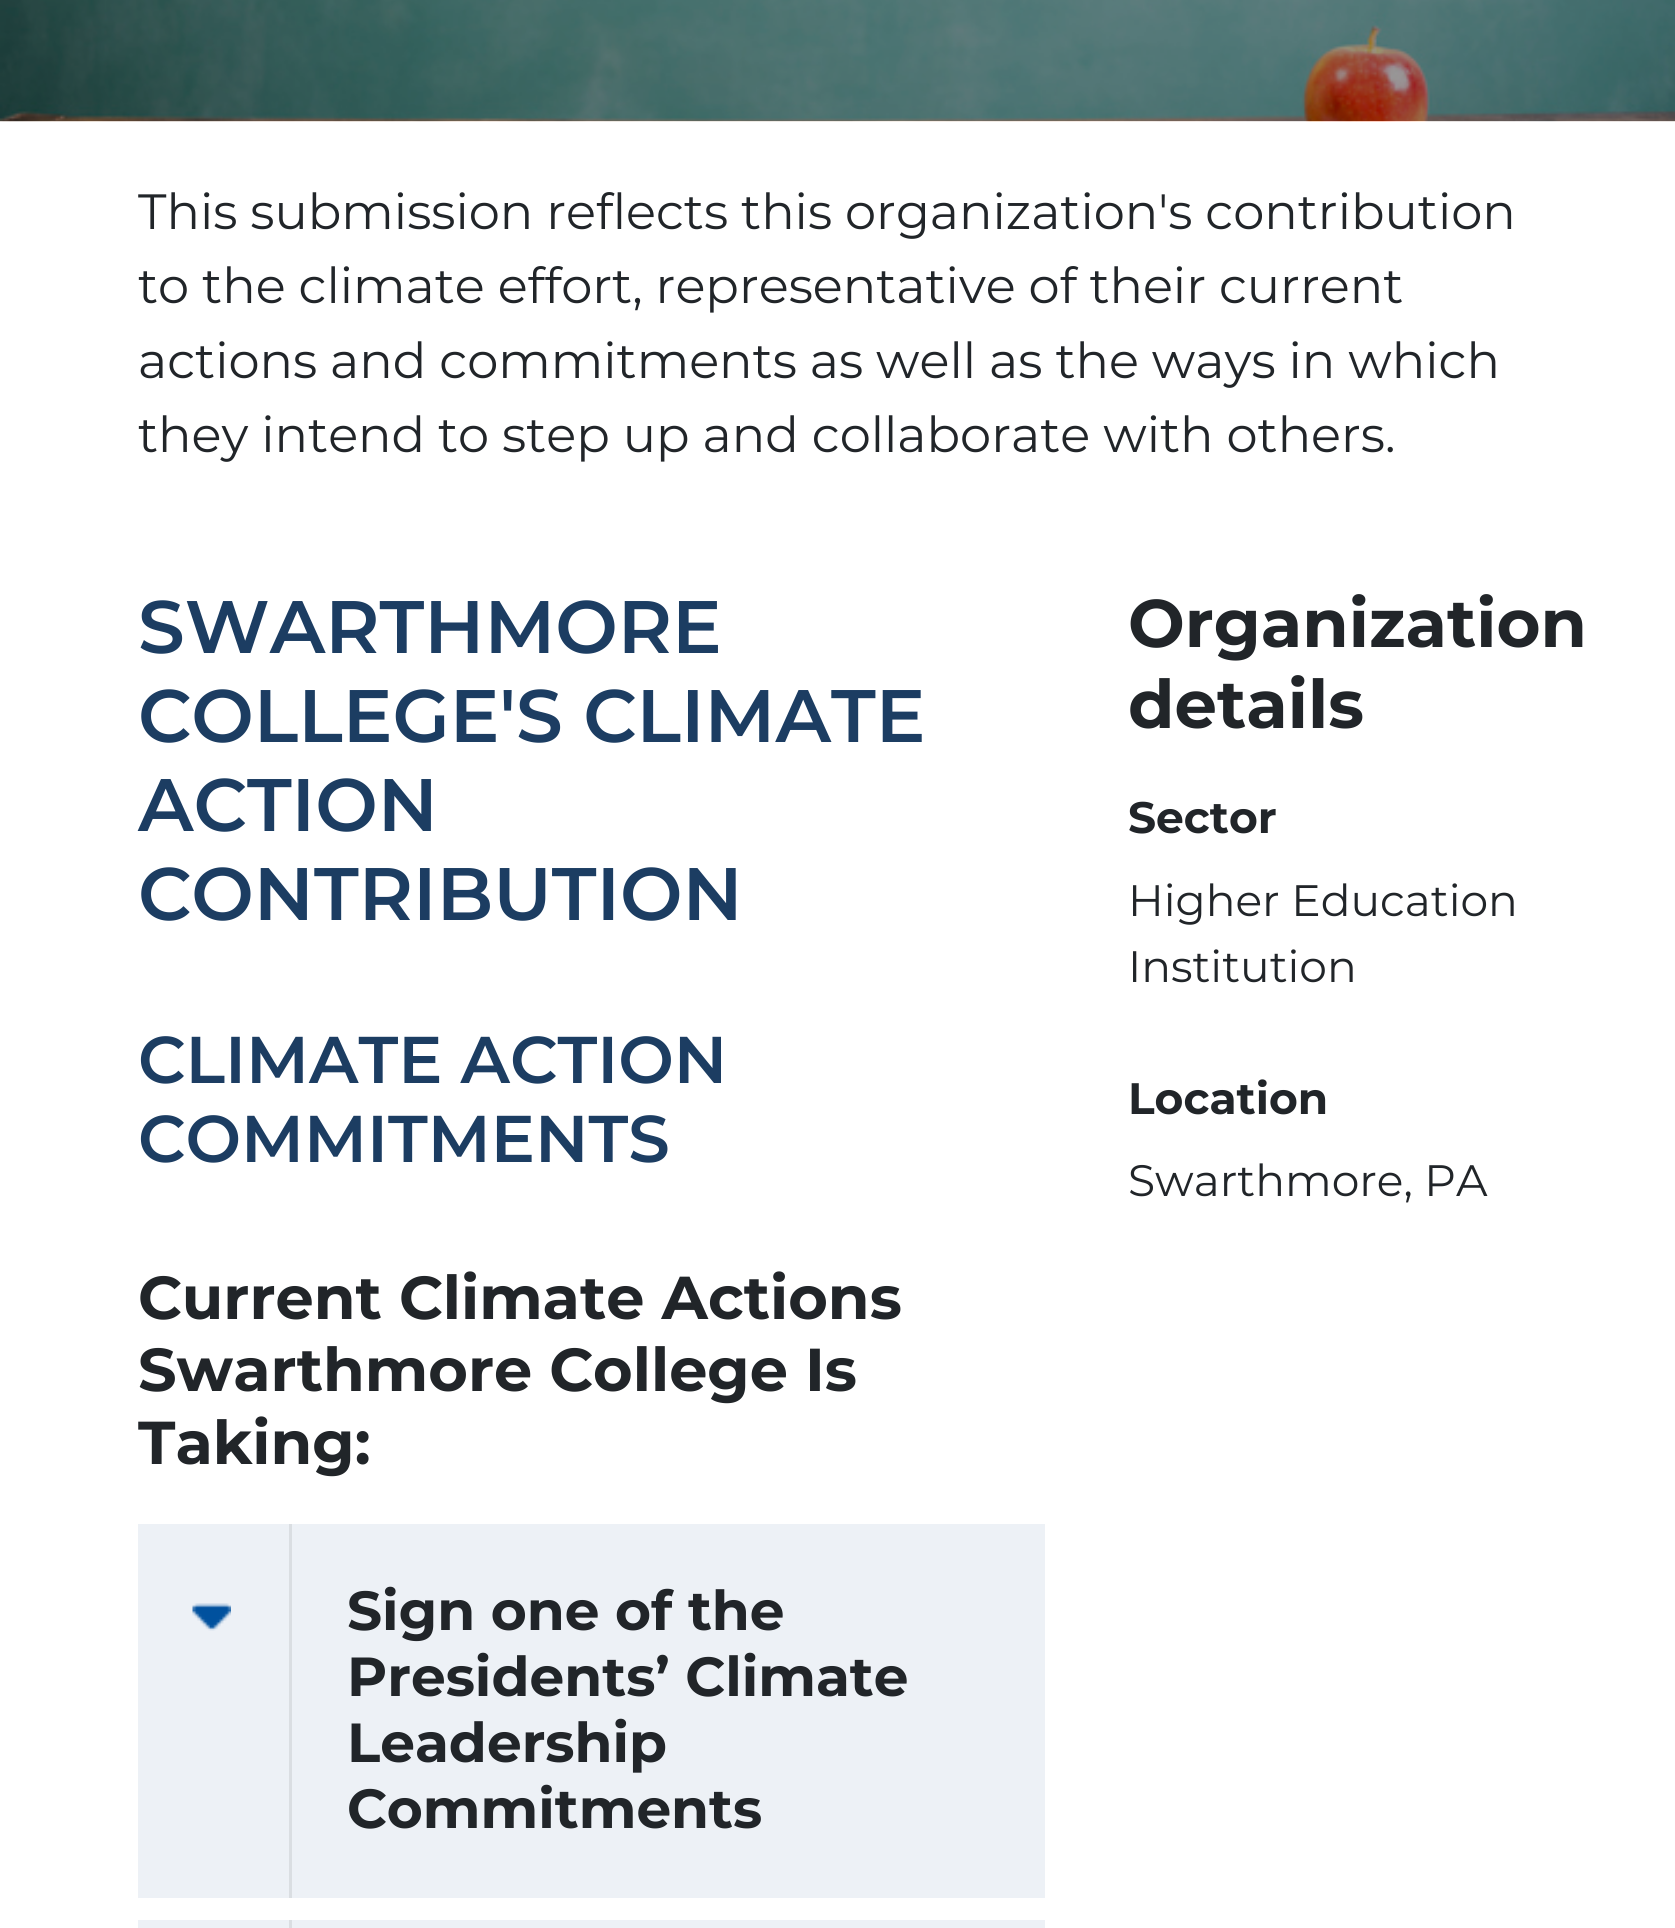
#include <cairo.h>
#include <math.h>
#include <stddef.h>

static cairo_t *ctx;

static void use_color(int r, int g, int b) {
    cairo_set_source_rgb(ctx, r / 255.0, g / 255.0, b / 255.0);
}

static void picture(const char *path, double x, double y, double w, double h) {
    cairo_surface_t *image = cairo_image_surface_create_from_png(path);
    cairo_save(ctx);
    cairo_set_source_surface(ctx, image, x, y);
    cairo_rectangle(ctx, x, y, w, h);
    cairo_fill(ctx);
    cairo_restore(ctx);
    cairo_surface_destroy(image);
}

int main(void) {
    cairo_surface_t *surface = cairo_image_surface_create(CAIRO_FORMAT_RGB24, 1675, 1928);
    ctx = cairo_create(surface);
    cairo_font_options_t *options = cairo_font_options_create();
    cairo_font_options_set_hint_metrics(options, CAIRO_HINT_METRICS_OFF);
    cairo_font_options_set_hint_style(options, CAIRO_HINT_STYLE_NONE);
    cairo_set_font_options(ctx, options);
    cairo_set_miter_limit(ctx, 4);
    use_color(255, 255, 255);
    cairo_paint(ctx);
    picture("img1.png", 0, 0, 1675, 122);
    cairo_select_font_face(ctx, "Montserrat", CAIRO_FONT_SLANT_NORMAL, CAIRO_FONT_WEIGHT_NORMAL);
    cairo_set_font_size(ctx, 49.5);
    use_color(33, 37, 41);
    cairo_move_to(ctx, 138, 229);
    cairo_show_text(ctx, "This submission reflects this organization's contribution");
    cairo_move_to(ctx, 138, 303);
    cairo_show_text(ctx, "to the climate effort, representative of their current");
    cairo_move_to(ctx, 138, 378);
    cairo_show_text(ctx, "actions and commitments as well as the ways in which");
    cairo_move_to(ctx, 138, 452);
    cairo_show_text(ctx, "they intend to step up and collaborate with others.");
    cairo_select_font_face(ctx, "Montserrat SemiBold", CAIRO_FONT_SLANT_NORMAL, CAIRO_FONT_WEIGHT_NORMAL);
    cairo_set_font_size(ctx, 74.25);
    use_color(28, 61, 98);
    cairo_move_to(ctx, 138, 653);
    cairo_show_text(ctx, "SWARTHMORE");
    cairo_move_to(ctx, 138, 742);
    cairo_show_text(ctx, "COLLEGE'S CLIMATE");
    cairo_move_to(ctx, 138, 831);
    cairo_show_text(ctx, "ACTION");
    cairo_move_to(ctx, 138, 920);
    cairo_show_text(ctx, "CONTRIBUTION");
    cairo_set_font_size(ctx, 66);
    cairo_move_to(ctx, 138, 1083);
    cairo_show_text(ctx, "CLIMATE ACTION");
    cairo_move_to(ctx, 138, 1162);
    cairo_show_text(ctx, "COMMITMENTS");
    cairo_select_font_face(ctx, "Montserrat", CAIRO_FONT_SLANT_NORMAL, CAIRO_FONT_WEIGHT_BOLD);
    cairo_set_font_size(ctx, 60.5);
    use_color(33, 37, 41);
    cairo_move_to(ctx, 138, 1319);
    cairo_show_text(ctx, "Current Climate Actions");
    cairo_move_to(ctx, 138, 1391);
    cairo_show_text(ctx, "Swarthmore College Is");
    cairo_move_to(ctx, 138, 1464);
    cairo_show_text(ctx, "Taking:");
    use_color(237, 241, 246);
    cairo_rectangle(ctx, 138, 1524, 907, 374);
    cairo_fill(ctx);
    picture("img2.png", 192, 1603, 39, 28);
    use_color(218, 222, 226);
    cairo_rectangle(ctx, 289, 1524, 3, 374);
    cairo_fill(ctx);
    cairo_set_font_size(ctx, 55);
    use_color(33, 37, 41);
    cairo_move_to(ctx, 347, 1630);
    cairo_show_text(ctx, "Sign one of the");
    cairo_move_to(ctx, 347, 1696);
    cairo_show_text(ctx, "Presidents’ Climate");
    cairo_move_to(ctx, 347, 1762);
    cairo_show_text(ctx, "Leadership");
    cairo_move_to(ctx, 347, 1828);
    cairo_show_text(ctx, "Commitments");
    use_color(237, 241, 246);
    cairo_rectangle(ctx, 138, 1920, 907, 8);
    cairo_fill(ctx);
    use_color(218, 222, 226);
    cairo_rectangle(ctx, 289, 1920, 3, 8);
    cairo_fill(ctx);
    cairo_set_font_size(ctx, 67.25);
    use_color(33, 37, 41);
    cairo_move_to(ctx, 1128, 647);
    cairo_show_text(ctx, "Organization");
    cairo_move_to(ctx, 1128, 728);
    cairo_show_text(ctx, "details");
    cairo_set_font_size(ctx, 44);
    cairo_move_to(ctx, 1128, 833);
    cairo_show_text(ctx, "Sector");
    cairo_select_font_face(ctx, "Montserrat", CAIRO_FONT_SLANT_NORMAL, CAIRO_FONT_WEIGHT_NORMAL);
    cairo_move_to(ctx, 1128, 916);
    cairo_show_text(ctx, "Higher Education");
    cairo_move_to(ctx, 1128, 982);
    cairo_show_text(ctx, "Institution");
    cairo_select_font_face(ctx, "Montserrat", CAIRO_FONT_SLANT_NORMAL, CAIRO_FONT_WEIGHT_BOLD);
    cairo_move_to(ctx, 1128, 1114);
    cairo_show_text(ctx, "Location");
    cairo_select_font_face(ctx, "Montserrat", CAIRO_FONT_SLANT_NORMAL, CAIRO_FONT_WEIGHT_NORMAL);
    cairo_move_to(ctx, 1128, 1196);
    cairo_show_text(ctx, "Swarthmore, PA");
    cairo_surface_write_to_png(surface, "result.png");
    cairo_font_options_destroy(options);
    cairo_destroy(ctx);
    cairo_surface_destroy(surface);
    return 0;
}
